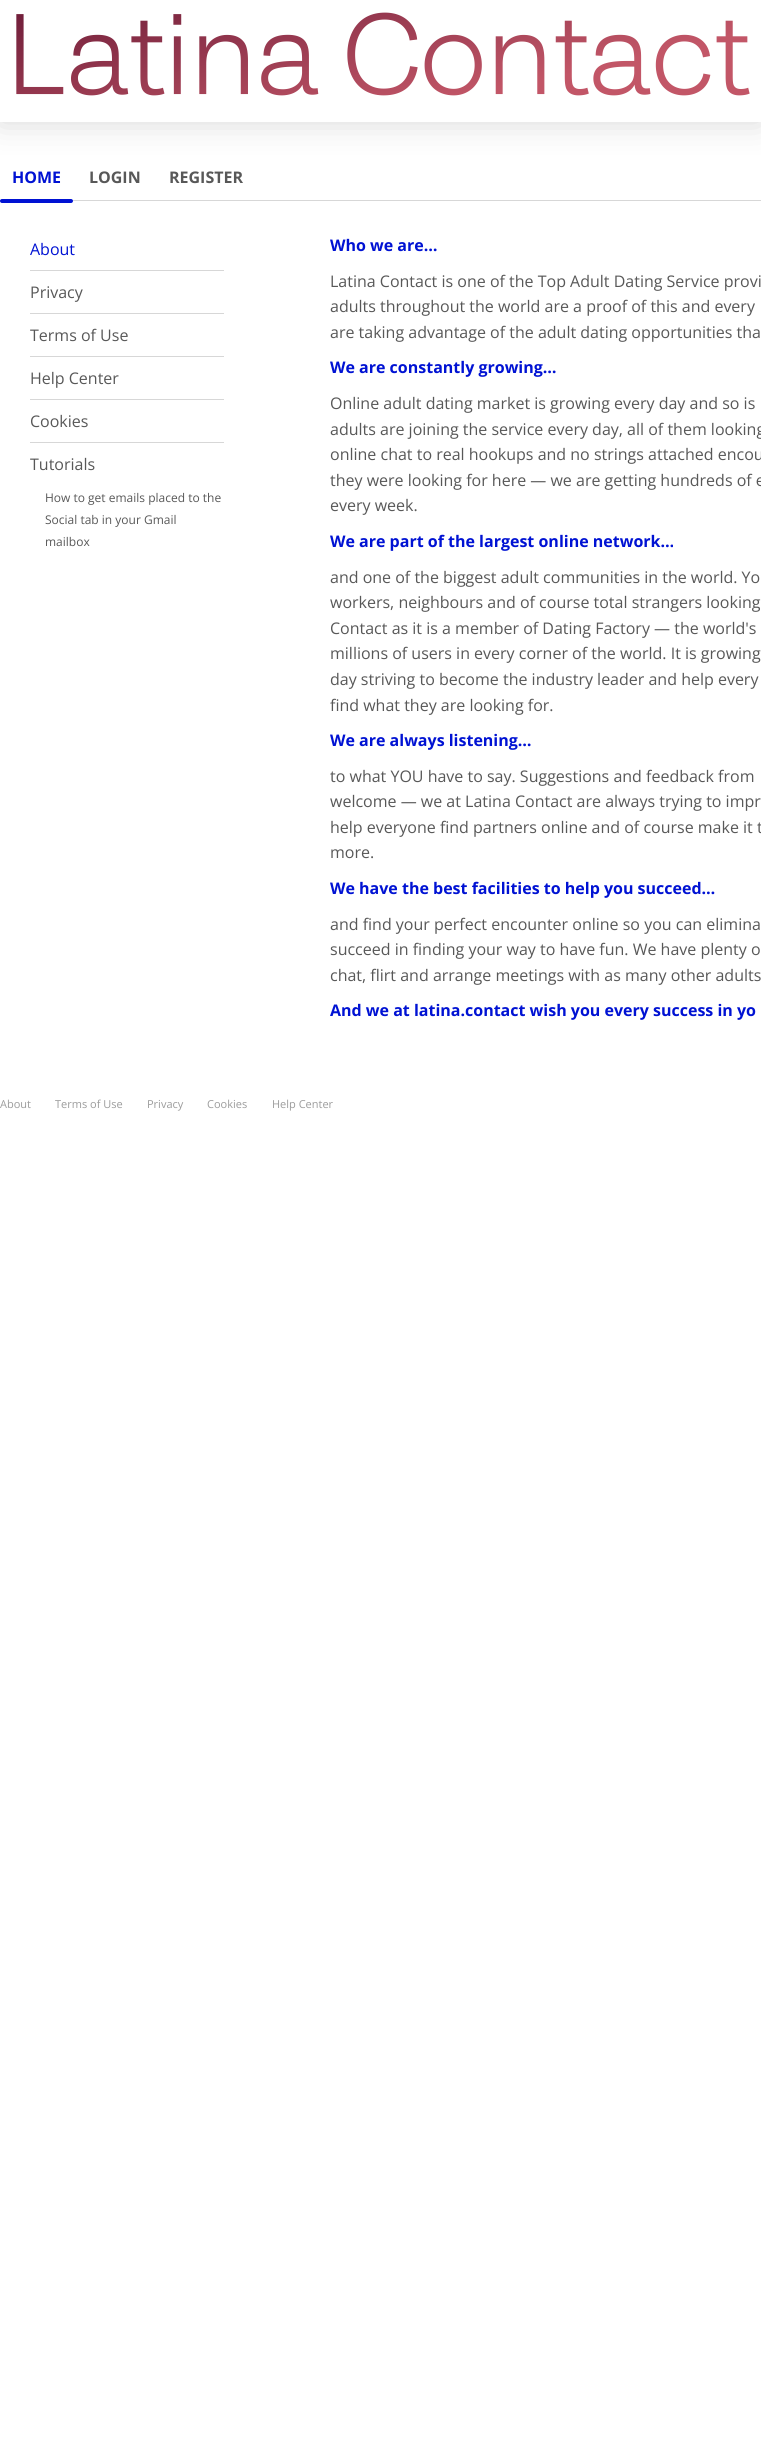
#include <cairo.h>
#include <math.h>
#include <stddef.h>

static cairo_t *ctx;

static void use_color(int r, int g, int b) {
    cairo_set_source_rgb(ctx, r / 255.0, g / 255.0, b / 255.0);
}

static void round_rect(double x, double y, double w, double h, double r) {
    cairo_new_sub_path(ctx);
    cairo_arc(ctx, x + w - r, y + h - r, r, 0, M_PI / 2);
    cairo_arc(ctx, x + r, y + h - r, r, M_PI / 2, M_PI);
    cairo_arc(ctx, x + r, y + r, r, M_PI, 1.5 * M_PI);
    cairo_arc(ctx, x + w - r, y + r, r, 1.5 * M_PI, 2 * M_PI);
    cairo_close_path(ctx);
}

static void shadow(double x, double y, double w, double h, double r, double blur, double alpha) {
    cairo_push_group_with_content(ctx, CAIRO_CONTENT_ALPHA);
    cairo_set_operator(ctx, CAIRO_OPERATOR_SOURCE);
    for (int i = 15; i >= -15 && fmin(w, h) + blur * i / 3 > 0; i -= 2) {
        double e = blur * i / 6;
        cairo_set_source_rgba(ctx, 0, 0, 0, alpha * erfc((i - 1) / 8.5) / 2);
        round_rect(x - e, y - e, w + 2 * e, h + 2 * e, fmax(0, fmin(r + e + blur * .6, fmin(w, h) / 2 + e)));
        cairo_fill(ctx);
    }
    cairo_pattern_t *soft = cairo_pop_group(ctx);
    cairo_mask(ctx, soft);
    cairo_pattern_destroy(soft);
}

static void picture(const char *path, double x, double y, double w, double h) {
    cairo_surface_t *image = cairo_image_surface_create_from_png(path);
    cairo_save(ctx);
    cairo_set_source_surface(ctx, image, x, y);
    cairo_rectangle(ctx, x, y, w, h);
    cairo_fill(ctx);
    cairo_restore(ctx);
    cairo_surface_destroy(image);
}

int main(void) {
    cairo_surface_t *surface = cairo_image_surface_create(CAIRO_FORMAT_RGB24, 761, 2464);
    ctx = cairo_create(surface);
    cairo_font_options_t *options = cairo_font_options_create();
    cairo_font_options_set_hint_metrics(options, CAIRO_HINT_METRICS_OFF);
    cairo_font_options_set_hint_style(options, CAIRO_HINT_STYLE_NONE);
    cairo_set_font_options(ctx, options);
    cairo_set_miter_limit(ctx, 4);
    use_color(255, 255, 255);
    cairo_paint(ctx);
    cairo_save(ctx);
    cairo_rectangle(ctx, 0, 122, 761, 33);
    cairo_clip(ctx);
    use_color(215, 215, 215);
    shadow(0, 0, 761, 122, 0, 16, 1);
    cairo_restore(ctx);
    picture("img1.png", 16, 12, 734, 84);
    use_color(215, 215, 215);
    cairo_rectangle(ctx, 0, 200, 761, 1);
    cairo_fill(ctx);
    cairo_select_font_face(ctx, "Open Sans", CAIRO_FONT_SLANT_NORMAL, CAIRO_FONT_WEIGHT_BOLD);
    cairo_set_font_size(ctx, 16);
    use_color(0, 18, 211);
    cairo_move_to(ctx, 12, 183);
    cairo_show_text(ctx, "HOME");
    round_rect(0, 199, 73, 4, 2);
    cairo_fill(ctx);
    use_color(88, 88, 88);
    cairo_move_to(ctx, 89, 183);
    cairo_show_text(ctx, "LOGIN");
    cairo_move_to(ctx, 169, 183);
    cairo_show_text(ctx, "REGISTER");
    use_color(215, 215, 215);
    cairo_rectangle(ctx, 30, 270, 194, 1);
    cairo_fill(ctx);
    cairo_select_font_face(ctx, "Open Sans", CAIRO_FONT_SLANT_NORMAL, CAIRO_FONT_WEIGHT_NORMAL);
    use_color(0, 18, 211);
    cairo_move_to(ctx, 30, 255);
    cairo_show_text(ctx, "About");
    use_color(215, 215, 215);
    cairo_rectangle(ctx, 30, 313, 194, 1);
    cairo_fill(ctx);
    use_color(88, 88, 88);
    cairo_move_to(ctx, 30, 298);
    cairo_show_text(ctx, "Privacy");
    use_color(215, 215, 215);
    cairo_rectangle(ctx, 30, 356, 194, 1);
    cairo_fill(ctx);
    use_color(88, 88, 88);
    cairo_move_to(ctx, 30, 341);
    cairo_show_text(ctx, "Terms of Use");
    use_color(215, 215, 215);
    cairo_rectangle(ctx, 30, 399, 194, 1);
    cairo_fill(ctx);
    use_color(88, 88, 88);
    cairo_move_to(ctx, 30, 384);
    cairo_show_text(ctx, "Help Center");
    use_color(215, 215, 215);
    cairo_rectangle(ctx, 30, 442, 194, 1);
    cairo_fill(ctx);
    use_color(88, 88, 88);
    cairo_move_to(ctx, 30, 427);
    cairo_show_text(ctx, "Cookies");
    cairo_move_to(ctx, 30, 470);
    cairo_show_text(ctx, "Tutorials");
    cairo_set_font_size(ctx, 12);
    cairo_move_to(ctx, 45, 502);
    cairo_show_text(ctx, "How to get emails placed to the");
    cairo_move_to(ctx, 45, 524);
    cairo_show_text(ctx, "Social tab in your Gmail");
    cairo_move_to(ctx, 45, 546);
    cairo_show_text(ctx, "mailbox");
    cairo_select_font_face(ctx, "Open Sans", CAIRO_FONT_SLANT_NORMAL, CAIRO_FONT_WEIGHT_BOLD);
    cairo_set_font_size(ctx, 16);
    use_color(0, 18, 211);
    cairo_move_to(ctx, 330, 251);
    cairo_show_text(ctx, "Who we are…");
    cairo_select_font_face(ctx, "Open Sans", CAIRO_FONT_SLANT_NORMAL, CAIRO_FONT_WEIGHT_NORMAL);
    use_color(88, 88, 88);
    cairo_move_to(ctx, 330, 287);
    cairo_show_text(ctx, "Latina Contact is one of the Top Adult Dating Service provi");
    cairo_move_to(ctx, 330, 312);
    cairo_show_text(ctx, "adults throughout the world are a proof of this and every");
    cairo_move_to(ctx, 330, 338);
    cairo_show_text(ctx, "are taking advantage of the adult dating opportunities tha");
    cairo_select_font_face(ctx, "Open Sans", CAIRO_FONT_SLANT_NORMAL, CAIRO_FONT_WEIGHT_BOLD);
    use_color(0, 18, 211);
    cairo_move_to(ctx, 330, 373);
    cairo_show_text(ctx, "We are constantly growing…");
    cairo_select_font_face(ctx, "Open Sans", CAIRO_FONT_SLANT_NORMAL, CAIRO_FONT_WEIGHT_NORMAL);
    use_color(88, 88, 88);
    cairo_move_to(ctx, 330, 409);
    cairo_show_text(ctx, "Online adult dating market is growing every day and so is");
    cairo_move_to(ctx, 330, 435);
    cairo_show_text(ctx, "adults are joining the service every day, all of them looking");
    cairo_move_to(ctx, 330, 460);
    cairo_show_text(ctx, "online chat to real hookups and no strings attached encou");
    cairo_move_to(ctx, 330, 486);
    cairo_show_text(ctx, "they were looking for here — we are getting hundreds of e");
    cairo_move_to(ctx, 330, 511);
    cairo_show_text(ctx, "every week.");
    cairo_select_font_face(ctx, "Open Sans", CAIRO_FONT_SLANT_NORMAL, CAIRO_FONT_WEIGHT_BOLD);
    use_color(0, 18, 211);
    cairo_move_to(ctx, 330, 547);
    cairo_show_text(ctx, "We are part of the largest online network…");
    cairo_select_font_face(ctx, "Open Sans", CAIRO_FONT_SLANT_NORMAL, CAIRO_FONT_WEIGHT_NORMAL);
    use_color(88, 88, 88);
    cairo_move_to(ctx, 330, 583);
    cairo_show_text(ctx, "and one of the biggest adult communities in the world. Yo");
    cairo_move_to(ctx, 330, 608);
    cairo_show_text(ctx, "workers, neighbours and of course total strangers looking");
    cairo_move_to(ctx, 330, 634);
    cairo_show_text(ctx, "Contact as it is a member of Dating Factory — the world's");
    cairo_move_to(ctx, 330, 659);
    cairo_show_text(ctx, "millions of users in every corner of the world. It is growing");
    cairo_move_to(ctx, 330, 685);
    cairo_show_text(ctx, "day striving to become the industry leader and help every");
    cairo_move_to(ctx, 330, 711);
    cairo_show_text(ctx, "find what they are looking for.");
    cairo_select_font_face(ctx, "Open Sans", CAIRO_FONT_SLANT_NORMAL, CAIRO_FONT_WEIGHT_BOLD);
    use_color(0, 18, 211);
    cairo_move_to(ctx, 330, 746);
    cairo_show_text(ctx, "We are always listening…");
    cairo_select_font_face(ctx, "Open Sans", CAIRO_FONT_SLANT_NORMAL, CAIRO_FONT_WEIGHT_NORMAL);
    use_color(88, 88, 88);
    cairo_move_to(ctx, 330, 782);
    cairo_show_text(ctx, "to what YOU have to say. Suggestions and feedback from");
    cairo_move_to(ctx, 330, 807);
    cairo_show_text(ctx, "welcome — we at Latina Contact are always trying to impr");
    cairo_move_to(ctx, 330, 833);
    cairo_show_text(ctx, "help everyone find partners online and of course make it t");
    cairo_move_to(ctx, 330, 858);
    cairo_show_text(ctx, "more.");
    cairo_select_font_face(ctx, "Open Sans", CAIRO_FONT_SLANT_NORMAL, CAIRO_FONT_WEIGHT_BOLD);
    use_color(0, 18, 211);
    cairo_move_to(ctx, 330, 894);
    cairo_show_text(ctx, "We have the best facilities to help you succeed…");
    cairo_select_font_face(ctx, "Open Sans", CAIRO_FONT_SLANT_NORMAL, CAIRO_FONT_WEIGHT_NORMAL);
    use_color(88, 88, 88);
    cairo_move_to(ctx, 330, 930);
    cairo_show_text(ctx, "and find your perfect encounter online so you can elimina");
    cairo_move_to(ctx, 330, 955);
    cairo_show_text(ctx, "succeed in finding your way to have fun. We have plenty o");
    cairo_move_to(ctx, 330, 981);
    cairo_show_text(ctx, "chat, flirt and arrange meetings with as many other adults");
    cairo_select_font_face(ctx, "Open Sans", CAIRO_FONT_SLANT_NORMAL, CAIRO_FONT_WEIGHT_BOLD);
    use_color(0, 18, 211);
    cairo_move_to(ctx, 330, 1016);
    cairo_show_text(ctx, "And we at latina.contact wish you every success in yo");
    cairo_select_font_face(ctx, "Open Sans", CAIRO_FONT_SLANT_NORMAL, CAIRO_FONT_WEIGHT_NORMAL);
    cairo_set_font_size(ctx, 11);
    use_color(156, 156, 156);
    cairo_move_to(ctx, 0, 1108);
    cairo_show_text(ctx, "About");
    cairo_move_to(ctx, 55, 1108);
    cairo_show_text(ctx, "Terms of Use");
    cairo_move_to(ctx, 147, 1108);
    cairo_show_text(ctx, "Privacy");
    cairo_move_to(ctx, 207, 1108);
    cairo_show_text(ctx, "Cookies");
    cairo_move_to(ctx, 272, 1108);
    cairo_show_text(ctx, "Help Center");
    cairo_surface_write_to_png(surface, "result.png");
    cairo_font_options_destroy(options);
    cairo_destroy(ctx);
    cairo_surface_destroy(surface);
    return 0;
}
